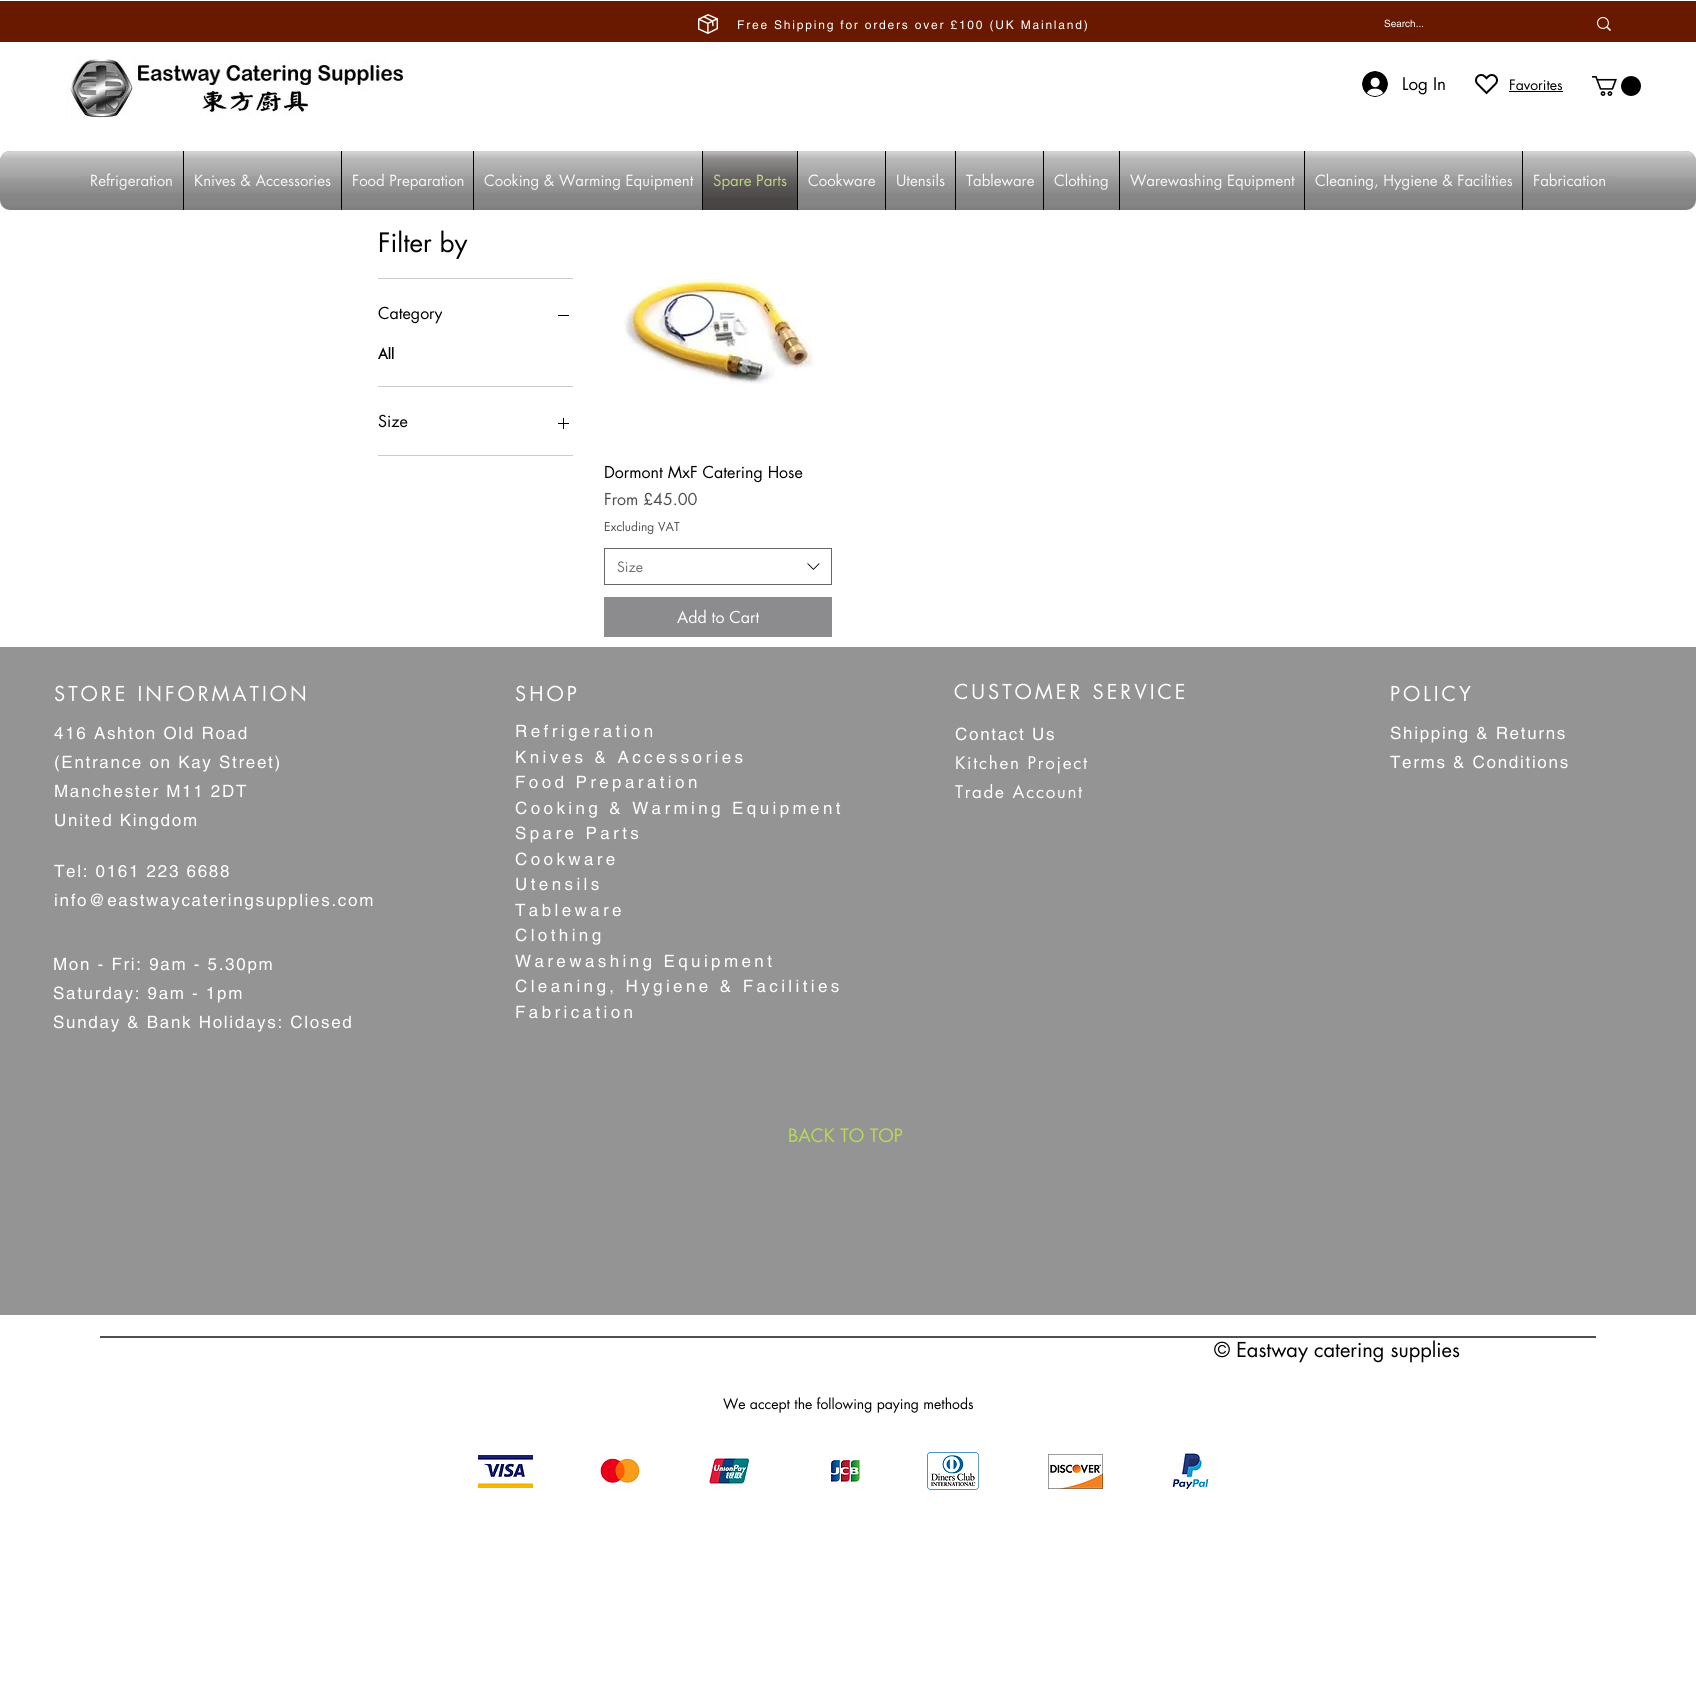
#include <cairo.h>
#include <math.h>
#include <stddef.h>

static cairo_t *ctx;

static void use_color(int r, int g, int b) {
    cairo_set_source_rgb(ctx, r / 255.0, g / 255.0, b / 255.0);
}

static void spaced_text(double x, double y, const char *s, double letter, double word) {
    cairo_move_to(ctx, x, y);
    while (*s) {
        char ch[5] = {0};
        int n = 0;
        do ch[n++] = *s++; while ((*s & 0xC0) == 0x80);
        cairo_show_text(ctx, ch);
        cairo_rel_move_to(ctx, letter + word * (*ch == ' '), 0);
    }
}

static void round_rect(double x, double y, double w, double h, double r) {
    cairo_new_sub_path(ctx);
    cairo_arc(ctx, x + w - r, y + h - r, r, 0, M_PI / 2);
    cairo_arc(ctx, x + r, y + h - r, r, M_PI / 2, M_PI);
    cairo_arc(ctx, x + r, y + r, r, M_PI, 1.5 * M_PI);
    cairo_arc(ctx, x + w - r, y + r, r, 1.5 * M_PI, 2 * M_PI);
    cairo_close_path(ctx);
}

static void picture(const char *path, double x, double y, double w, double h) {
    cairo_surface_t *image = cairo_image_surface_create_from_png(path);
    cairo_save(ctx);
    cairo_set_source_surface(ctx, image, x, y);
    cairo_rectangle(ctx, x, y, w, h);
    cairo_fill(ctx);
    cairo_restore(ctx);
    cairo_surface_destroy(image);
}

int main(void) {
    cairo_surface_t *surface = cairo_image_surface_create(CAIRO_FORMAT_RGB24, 1696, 1705);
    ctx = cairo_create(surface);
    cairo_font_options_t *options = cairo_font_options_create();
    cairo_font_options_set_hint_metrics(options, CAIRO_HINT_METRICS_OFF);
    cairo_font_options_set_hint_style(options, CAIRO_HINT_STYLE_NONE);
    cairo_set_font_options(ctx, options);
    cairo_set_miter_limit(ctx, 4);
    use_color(255, 255, 255);
    cairo_paint(ctx);
    use_color(105, 25, 0);
    cairo_rectangle(ctx, 0, 1, 1696, 41);
    cairo_fill(ctx);
    picture("img1.png", 698, 14, 20, 20);
    cairo_select_font_face(ctx, "helvetica", CAIRO_FONT_SLANT_NORMAL, CAIRO_FONT_WEIGHT_NORMAL);
    cairo_set_font_size(ctx, 12);
    use_color(255, 255, 255);
    spaced_text(737, 29, "Free Shipping for orders over £100 (UK Mainland)", 1.8, 0);
    cairo_set_font_size(ctx, 10);
    cairo_move_to(ctx, 1384, 27);
    cairo_show_text(ctx, "Search...");
    picture("img2.png", 1597, 17, 14, 14);
    picture("img3.png", 67, 59, 336, 60);
    picture("img4.png", 1362, 71, 26, 26);
    cairo_select_font_face(ctx, "futura", CAIRO_FONT_SLANT_NORMAL, CAIRO_FONT_WEIGHT_NORMAL);
    cairo_set_font_size(ctx, 17);
    use_color(0, 0, 0);
    cairo_move_to(ctx, 1402, 90);
    cairo_show_text(ctx, "Log In");
    picture("img5.png", 1475, 74, 23, 21);
    cairo_set_font_size(ctx, 14);
    cairo_move_to(ctx, 1509, 90);
    cairo_show_text(ctx, "Favorites");
    cairo_rectangle(ctx, 1509, 91, 54, 1);
    cairo_fill(ctx);
    picture("img6.png", 1592, 76, 49, 20);
    use_color(148, 148, 148);
    round_rect(0, 151, 1696, 59, 10);
    cairo_fill(ctx);
    picture("img7.png", 0, 151, 1696, 42);
    picture("img8.png", 0, 178, 1696, 32);
    cairo_rectangle(ctx, 80, 151, 103, 59);
    cairo_fill(ctx);
    cairo_set_font_size(ctx, 15);
    use_color(255, 255, 255);
    cairo_move_to(ctx, 90, 186);
    cairo_show_text(ctx, "Refrigeration");
    picture("img9.png", 80, 151, 103, 42);
    picture("img10.png", 80, 176, 103, 34);
    use_color(148, 148, 148);
    cairo_rectangle(ctx, 184, 151, 157, 59);
    cairo_fill(ctx);
    use_color(0, 0, 0);
    cairo_rectangle(ctx, 183, 151, 1, 59);
    cairo_fill(ctx);
    use_color(255, 255, 255);
    cairo_move_to(ctx, 194, 186);
    cairo_show_text(ctx, "Knives & Accessories");
    picture("img11.png", 184, 151, 157, 42);
    picture("img12.png", 184, 176, 157, 34);
    use_color(148, 148, 148);
    cairo_rectangle(ctx, 342, 151, 131, 59);
    cairo_fill(ctx);
    use_color(0, 0, 0);
    cairo_rectangle(ctx, 341, 151, 1, 59);
    cairo_fill(ctx);
    use_color(255, 255, 255);
    cairo_move_to(ctx, 352, 186);
    cairo_show_text(ctx, "Food Preparation");
    picture("img13.png", 342, 151, 131, 42);
    picture("img14.png", 342, 176, 131, 34);
    use_color(148, 148, 148);
    cairo_rectangle(ctx, 474, 151, 228, 59);
    cairo_fill(ctx);
    use_color(0, 0, 0);
    cairo_rectangle(ctx, 473, 151, 1, 59);
    cairo_fill(ctx);
    use_color(255, 255, 255);
    cairo_move_to(ctx, 484, 186);
    cairo_show_text(ctx, "Cooking & Warming Equipment");
    picture("img15.png", 474, 151, 228, 42);
    picture("img16.png", 474, 176, 228, 34);
    use_color(82, 78, 78);
    cairo_rectangle(ctx, 703, 151, 94, 59);
    cairo_fill(ctx);
    use_color(0, 0, 0);
    cairo_rectangle(ctx, 702, 151, 1, 59);
    cairo_fill(ctx);
    use_color(193, 216, 122);
    cairo_move_to(ctx, 713, 186);
    cairo_show_text(ctx, "Spare Parts");
    picture("img17.png", 703, 151, 94, 46);
    picture("img18.png", 703, 176, 94, 34);
    use_color(148, 148, 148);
    cairo_rectangle(ctx, 798, 151, 87, 59);
    cairo_fill(ctx);
    use_color(0, 0, 0);
    cairo_rectangle(ctx, 797, 151, 1, 59);
    cairo_fill(ctx);
    use_color(255, 255, 255);
    cairo_move_to(ctx, 808, 186);
    cairo_show_text(ctx, "Cookware");
    picture("img19.png", 798, 151, 87, 42);
    picture("img20.png", 798, 176, 87, 34);
    use_color(148, 148, 148);
    cairo_rectangle(ctx, 886, 151, 69, 59);
    cairo_fill(ctx);
    use_color(0, 0, 0);
    cairo_rectangle(ctx, 885, 151, 1, 59);
    cairo_fill(ctx);
    use_color(255, 255, 255);
    cairo_move_to(ctx, 896, 186);
    cairo_show_text(ctx, "Utensils");
    picture("img21.png", 886, 151, 69, 42);
    picture("img22.png", 886, 176, 69, 34);
    use_color(148, 148, 148);
    cairo_rectangle(ctx, 956, 151, 87, 59);
    cairo_fill(ctx);
    use_color(0, 0, 0);
    cairo_rectangle(ctx, 955, 151, 1, 59);
    cairo_fill(ctx);
    use_color(255, 255, 255);
    cairo_move_to(ctx, 966, 186);
    cairo_show_text(ctx, "Tableware");
    picture("img23.png", 956, 151, 87, 42);
    picture("img24.png", 956, 176, 87, 34);
    use_color(148, 148, 148);
    cairo_rectangle(ctx, 1044, 151, 75, 59);
    cairo_fill(ctx);
    use_color(0, 0, 0);
    cairo_rectangle(ctx, 1043, 151, 1, 59);
    cairo_fill(ctx);
    use_color(255, 255, 255);
    cairo_move_to(ctx, 1054, 186);
    cairo_show_text(ctx, "Clothing");
    picture("img25.png", 1044, 151, 75, 42);
    picture("img26.png", 1044, 176, 75, 34);
    use_color(148, 148, 148);
    cairo_rectangle(ctx, 1120, 151, 184, 59);
    cairo_fill(ctx);
    use_color(0, 0, 0);
    cairo_rectangle(ctx, 1119, 151, 1, 59);
    cairo_fill(ctx);
    use_color(255, 255, 255);
    cairo_move_to(ctx, 1130, 186);
    cairo_show_text(ctx, "Warewashing Equipment");
    picture("img27.png", 1120, 151, 184, 42);
    picture("img28.png", 1120, 176, 184, 34);
    use_color(148, 148, 148);
    cairo_rectangle(ctx, 1305, 151, 217, 59);
    cairo_fill(ctx);
    use_color(0, 0, 0);
    cairo_rectangle(ctx, 1304, 151, 1, 59);
    cairo_fill(ctx);
    use_color(255, 255, 255);
    cairo_move_to(ctx, 1315, 186);
    cairo_show_text(ctx, "Cleaning, Hygiene & Facilities");
    picture("img29.png", 1305, 151, 217, 42);
    picture("img30.png", 1305, 176, 217, 34);
    use_color(148, 148, 148);
    cairo_rectangle(ctx, 1523, 151, 93, 59);
    cairo_fill(ctx);
    use_color(0, 0, 0);
    cairo_rectangle(ctx, 1522, 151, 1, 59);
    cairo_fill(ctx);
    use_color(255, 255, 255);
    cairo_move_to(ctx, 1533, 186);
    cairo_show_text(ctx, "Fabrication");
    picture("img31.png", 1523, 151, 93, 42);
    picture("img32.png", 1523, 176, 93, 34);
    use_color(204, 204, 204);
    cairo_rectangle(ctx, 378, 278, 195, 1);
    cairo_fill(ctx);
    cairo_set_font_size(ctx, 26);
    use_color(0, 0, 0);
    cairo_move_to(ctx, 378, 252);
    cairo_show_text(ctx, "Filter by");
    use_color(204, 204, 204);
    cairo_rectangle(ctx, 378, 386, 195, 1);
    cairo_fill(ctx);
    cairo_set_font_size(ctx, 16);
    use_color(0, 0, 0);
    cairo_move_to(ctx, 378, 319);
    cairo_show_text(ctx, "Category");
    cairo_rectangle(ctx, 558, 315, 11, 1);
    cairo_fill(ctx);
    cairo_select_font_face(ctx, "futura", CAIRO_FONT_SLANT_NORMAL, CAIRO_FONT_WEIGHT_BOLD);
    cairo_set_font_size(ctx, 14);
    cairo_move_to(ctx, 378, 359);
    cairo_show_text(ctx, "All");
    use_color(204, 204, 204);
    cairo_rectangle(ctx, 378, 455, 195, 1);
    cairo_fill(ctx);
    cairo_select_font_face(ctx, "futura", CAIRO_FONT_SLANT_NORMAL, CAIRO_FONT_WEIGHT_NORMAL);
    cairo_set_font_size(ctx, 16);
    use_color(0, 0, 0);
    cairo_move_to(ctx, 378, 427);
    cairo_show_text(ctx, "Size");
    picture("img33.png", 558, 418, 11, 11);
    picture("img34.png", 624, 278, 189, 106);
    cairo_move_to(ctx, 604, 478);
    cairo_show_text(ctx, "Dormont MxF Catering Hose");
    use_color(82, 78, 78);
    cairo_move_to(ctx, 604, 505);
    cairo_show_text(ctx, "From £45.00");
    cairo_set_font_size(ctx, 12);
    cairo_move_to(ctx, 604, 531);
    cairo_show_text(ctx, "Excluding VAT");
    cairo_rectangle(ctx, 604.5, 548.5, 227, 36);
    use_color(102, 102, 102);
    cairo_set_line_width(ctx, 1);
    cairo_stroke(ctx);
    cairo_set_font_size(ctx, 14);
    use_color(117, 113, 113);
    cairo_move_to(ctx, 617, 572);
    cairo_show_text(ctx, "Size");
    picture("img35.png", 807, 563, 13, 7);
    use_color(140, 139, 142);
    cairo_rectangle(ctx, 604, 597, 228, 40);
    cairo_fill(ctx);
    cairo_set_font_size(ctx, 16);
    use_color(255, 255, 255);
    cairo_move_to(ctx, 677, 623);
    cairo_show_text(ctx, "Add to Cart");
    use_color(148, 148, 148);
    cairo_rectangle(ctx, 0, 647, 1696, 668);
    cairo_fill(ctx);
    cairo_set_font_size(ctx, 20);
    use_color(255, 255, 255);
    spaced_text(54, 701, "STORE INFORMATION", 3, 0);
    cairo_select_font_face(ctx, "helvetica", CAIRO_FONT_SLANT_NORMAL, CAIRO_FONT_WEIGHT_NORMAL);
    cairo_set_font_size(ctx, 17);
    spaced_text(54, 739, "416 Ashton Old Road", 1.7, 0);
    spaced_text(54, 768, "(Entrance on Kay Street)", 1.7, 0);
    spaced_text(54, 797, "Manchester M11 2DT", 1.7, 0);
    spaced_text(54, 826, "United Kingdom", 1.7, 0);
    spaced_text(54, 877, "Tel: 0161 223 6688", 1.7, 0);
    spaced_text(54, 906, "info@eastwaycateringsupplies.com", 1.7, 0);
    spaced_text(53, 970, "Mon - Fri: 9am - 5.30pm", 1.7, 0);
    spaced_text(53, 999, "Saturday: 9am - 1pm", 1.7, 0);
    spaced_text(53, 1028, "Sunday & Bank Holidays: Closed", 1.7, 0);
    cairo_select_font_face(ctx, "futura", CAIRO_FONT_SLANT_NORMAL, CAIRO_FONT_WEIGHT_NORMAL);
    cairo_set_font_size(ctx, 20);
    spaced_text(515, 701, "SHOP", 3, 0);
    cairo_select_font_face(ctx, "helvetica", CAIRO_FONT_SLANT_NORMAL, CAIRO_FONT_WEIGHT_NORMAL);
    cairo_set_font_size(ctx, 17);
    spaced_text(515, 737, "Refrigeration", 3.4, 0);
    spaced_text(515, 763, "Knives & Accessories", 3.4, 0);
    spaced_text(515, 788, "Food Preparation", 3.4, 0);
    spaced_text(515, 814, "Cooking & Warming Equipment", 3.4, 0);
    spaced_text(515, 839, "Spare Parts", 3.4, 0);
    spaced_text(515, 865, "Cookware", 3.4, 0);
    spaced_text(515, 890, "Utensils", 3.4, 0);
    spaced_text(515, 916, "Tableware", 3.4, 0);
    spaced_text(515, 941, "Clothing", 3.4, 0);
    spaced_text(515, 967, "Warewashing Equipment", 3.4, 0);
    spaced_text(515, 992, "Cleaning, Hygiene & Facilities", 3.4, 0);
    spaced_text(515, 1018, "Fabrication", 3.4, 0);
    cairo_select_font_face(ctx, "futura", CAIRO_FONT_SLANT_NORMAL, CAIRO_FONT_WEIGHT_NORMAL);
    cairo_set_font_size(ctx, 20);
    spaced_text(954, 699, "CUSTOMER SERVICE", 3, 0);
    cairo_select_font_face(ctx, "helvetica", CAIRO_FONT_SLANT_NORMAL, CAIRO_FONT_WEIGHT_NORMAL);
    cairo_set_font_size(ctx, 17);
    spaced_text(955, 740, "Contact Us", 1.7, 0);
    cairo_select_font_face(ctx, "futura", CAIRO_FONT_SLANT_NORMAL, CAIRO_FONT_WEIGHT_NORMAL);
    spaced_text(955, 769, "Kitchen Project", 1.7, 0);
    spaced_text(955, 798, "Trade Account", 1.7, 0);
    cairo_set_font_size(ctx, 20);
    spaced_text(1390, 701, "POLICY", 3, 0);
    cairo_select_font_face(ctx, "helvetica", CAIRO_FONT_SLANT_NORMAL, CAIRO_FONT_WEIGHT_NORMAL);
    cairo_set_font_size(ctx, 17);
    spaced_text(1390, 739, "Shipping & Returns", 1.7, 0);
    spaced_text(1390, 768, "Terms & Conditions", 1.7, 0);
    cairo_select_font_face(ctx, "futura", CAIRO_FONT_SLANT_NORMAL, CAIRO_FONT_WEIGHT_NORMAL);
    cairo_set_font_size(ctx, 18);
    use_color(186, 218, 85);
    cairo_move_to(ctx, 788, 1142);
    cairo_show_text(ctx, "BACK TO TOP");
    use_color(82, 78, 78);
    cairo_rectangle(ctx, 100, 1336, 1496, 2);
    cairo_fill(ctx);
    cairo_set_font_size(ctx, 20);
    use_color(0, 0, 0);
    cairo_move_to(ctx, 1214, 1357);
    cairo_show_text(ctx, "© Eastway catering supplies");
    cairo_set_font_size(ctx, 14);
    cairo_move_to(ctx, 723, 1409);
    cairo_show_text(ctx, "We accept the following paying methods");
    picture("img36.png", 478, 1455, 55, 33);
    picture("img37.png", 600, 1458, 40, 25);
    picture("img38.png", 709, 1458, 41, 28);
    picture("img39.png", 831, 1460, 29, 22);
    picture("img40.png", 927, 1452, 52, 38);
    picture("img41.png", 1048, 1454, 55, 35);
    picture("img42.png", 1172, 1453, 37, 36);
    cairo_surface_write_to_png(surface, "result.png");
    cairo_font_options_destroy(options);
    cairo_destroy(ctx);
    cairo_surface_destroy(surface);
    return 0;
}
